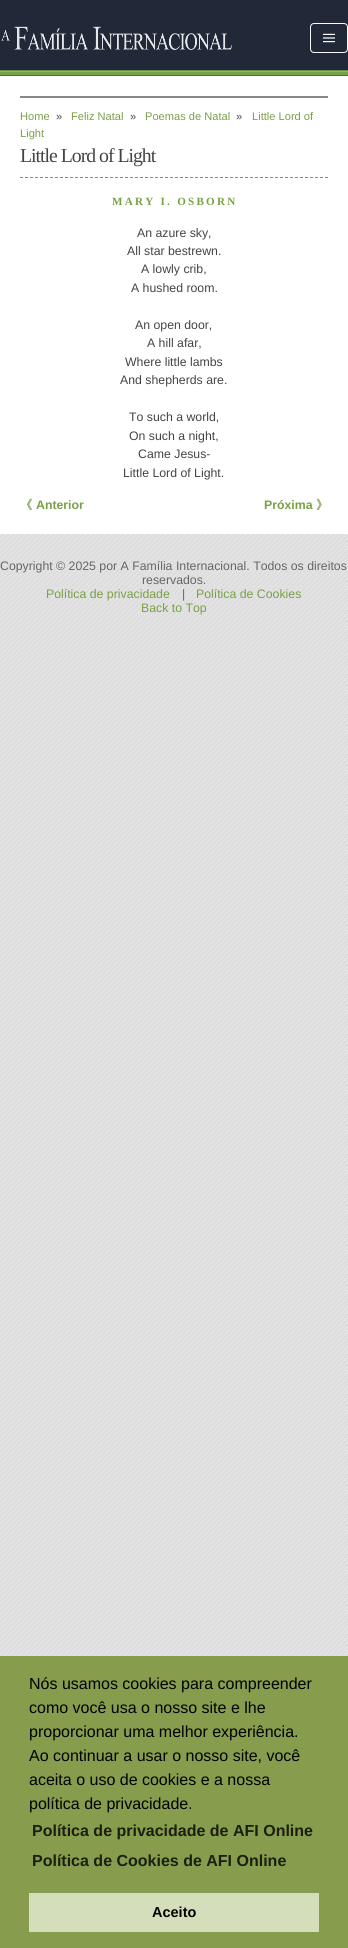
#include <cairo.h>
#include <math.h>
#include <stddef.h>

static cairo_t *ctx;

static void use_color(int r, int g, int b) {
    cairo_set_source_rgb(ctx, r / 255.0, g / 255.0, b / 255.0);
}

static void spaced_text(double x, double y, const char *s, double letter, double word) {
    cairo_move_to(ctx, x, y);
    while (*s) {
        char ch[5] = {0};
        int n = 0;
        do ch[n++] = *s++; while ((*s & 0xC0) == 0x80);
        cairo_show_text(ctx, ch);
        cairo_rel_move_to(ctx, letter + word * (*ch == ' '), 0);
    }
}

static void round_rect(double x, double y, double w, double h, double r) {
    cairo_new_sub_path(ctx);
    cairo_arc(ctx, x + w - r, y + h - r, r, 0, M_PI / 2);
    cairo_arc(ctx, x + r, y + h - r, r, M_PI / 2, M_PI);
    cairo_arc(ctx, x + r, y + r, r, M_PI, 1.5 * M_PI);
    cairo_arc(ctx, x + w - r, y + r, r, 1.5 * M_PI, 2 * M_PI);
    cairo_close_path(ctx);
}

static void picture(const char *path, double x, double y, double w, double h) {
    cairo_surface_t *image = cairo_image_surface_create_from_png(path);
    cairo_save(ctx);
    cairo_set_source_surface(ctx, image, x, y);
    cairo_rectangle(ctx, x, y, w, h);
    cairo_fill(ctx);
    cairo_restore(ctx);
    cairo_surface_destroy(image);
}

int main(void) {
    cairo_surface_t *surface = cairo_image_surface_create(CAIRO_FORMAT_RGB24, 348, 1948);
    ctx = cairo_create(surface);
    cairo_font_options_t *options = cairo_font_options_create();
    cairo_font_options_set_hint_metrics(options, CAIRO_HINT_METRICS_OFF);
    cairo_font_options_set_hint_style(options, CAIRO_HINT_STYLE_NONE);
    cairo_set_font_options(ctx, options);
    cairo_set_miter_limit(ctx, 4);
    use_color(255, 255, 255);
    cairo_paint(ctx);
    picture("img1.png", 0, 655, 348, 1001);
    picture("img2.png", 0, 0, 348, 76);
    picture("img3.png", 1, 26, 231, 24);
    round_rect(310.5, 23.5, 37, 29, 3.5);
    use_color(248, 250, 252);
    cairo_set_line_width(ctx, 1);
    cairo_stroke(ctx);
    picture("img4.png", 323, 33, 12, 10);
    picture("img5.png", 0, 534, 348, 121);
    use_color(133, 136, 141);
    cairo_rectangle(ctx, 20, 96, 308, 2);
    cairo_fill(ctx);
    cairo_new_path(ctx);
    cairo_move_to(ctx, 20, 177.5);
    cairo_line_to(ctx, 328, 177.5);
    cairo_set_dash(ctx, (double[]){3, 2}, 2, 0);
    cairo_stroke(ctx);
    cairo_select_font_face(ctx, "Liberation Sans", CAIRO_FONT_SLANT_NORMAL, CAIRO_FONT_WEIGHT_NORMAL);
    cairo_set_font_size(ctx, 11.1);
    use_color(121, 160, 71);
    cairo_move_to(ctx, 20, 120);
    cairo_show_text(ctx, "Home");
    use_color(68, 68, 68);
    cairo_move_to(ctx, 56, 120);
    cairo_show_text(ctx, "»");
    use_color(121, 160, 71);
    cairo_move_to(ctx, 71, 120);
    cairo_show_text(ctx, "Feliz Natal");
    use_color(68, 68, 68);
    cairo_move_to(ctx, 130, 120);
    cairo_show_text(ctx, "»");
    use_color(121, 160, 71);
    cairo_move_to(ctx, 145, 120);
    cairo_show_text(ctx, "Poemas de Natal");
    use_color(68, 68, 68);
    cairo_move_to(ctx, 236, 120);
    cairo_show_text(ctx, "»");
    use_color(121, 160, 71);
    cairo_move_to(ctx, 252, 120);
    cairo_show_text(ctx, "Little Lord of");
    cairo_move_to(ctx, 20, 137);
    cairo_show_text(ctx, "Light");
    cairo_select_font_face(ctx, "Liberation Serif", CAIRO_FONT_SLANT_NORMAL, CAIRO_FONT_WEIGHT_NORMAL);
    cairo_set_font_size(ctx, 19.75);
    use_color(68, 68, 68);
    spaced_text(20, 162, "Little Lord of Light", -1, 0);
    cairo_select_font_face(ctx, "Liberation Serif", CAIRO_FONT_SLANT_NORMAL, CAIRO_FONT_WEIGHT_BOLD);
    cairo_set_font_size(ctx, 11.1);
    use_color(121, 160, 71);
    spaced_text(112, 205, "MARY I. OSBORN", 2.25, 0);
    cairo_select_font_face(ctx, "Liberation Sans", CAIRO_FONT_SLANT_NORMAL, CAIRO_FONT_WEIGHT_NORMAL);
    cairo_set_font_size(ctx, 12.3);
    use_color(68, 68, 68);
    cairo_move_to(ctx, 137, 237);
    cairo_show_text(ctx, "An azure sky,");
    cairo_move_to(ctx, 127, 255);
    cairo_show_text(ctx, "All star bestrewn.");
    cairo_move_to(ctx, 141, 273);
    cairo_show_text(ctx, "A lowly crib,");
    cairo_move_to(ctx, 131, 292);
    cairo_show_text(ctx, "A hushed room.");
    cairo_move_to(ctx, 135, 329);
    cairo_show_text(ctx, "An open door,");
    cairo_move_to(ctx, 147, 347);
    cairo_show_text(ctx, "A hill afar,");
    cairo_move_to(ctx, 125, 366);
    cairo_show_text(ctx, "Where little lambs");
    cairo_move_to(ctx, 120, 384);
    cairo_show_text(ctx, "And shepherds are.");
    cairo_move_to(ctx, 129, 421);
    cairo_show_text(ctx, "To such a world,");
    cairo_move_to(ctx, 129, 440);
    cairo_show_text(ctx, "On such a night,");
    cairo_move_to(ctx, 138, 458);
    cairo_show_text(ctx, "Came Jesus-");
    cairo_move_to(ctx, 123, 477);
    cairo_show_text(ctx, "Little Lord of Light.");
    cairo_select_font_face(ctx, "WenQuanYi Zen Hei", CAIRO_FONT_SLANT_NORMAL, CAIRO_FONT_WEIGHT_BOLD);
    use_color(121, 160, 71);
    cairo_move_to(ctx, 20, 509);
    cairo_show_text(ctx, "《");
    cairo_select_font_face(ctx, "Liberation Sans", CAIRO_FONT_SLANT_NORMAL, CAIRO_FONT_WEIGHT_BOLD);
    cairo_move_to(ctx, 36, 509);
    cairo_show_text(ctx, "Anterior");
    cairo_move_to(ctx, 264, 509);
    cairo_show_text(ctx, "Próxima");
    cairo_select_font_face(ctx, "WenQuanYi Zen Hei", CAIRO_FONT_SLANT_NORMAL, CAIRO_FONT_WEIGHT_BOLD);
    cairo_move_to(ctx, 316, 509);
    cairo_show_text(ctx, "》");
    cairo_select_font_face(ctx, "Liberation Sans", CAIRO_FONT_SLANT_NORMAL, CAIRO_FONT_WEIGHT_NORMAL);
    use_color(102, 102, 102);
    cairo_move_to(ctx, 0, 570);
    cairo_show_text(ctx, "Copyright © 2025 por A Família Internacional. Todos os direitos");
    cairo_move_to(ctx, 142, 584);
    cairo_show_text(ctx, "reservados.");
    use_color(121, 160, 71);
    cairo_move_to(ctx, 46, 598);
    cairo_show_text(ctx, "Política de privacidade");
    use_color(102, 102, 102);
    cairo_move_to(ctx, 182, 598);
    cairo_show_text(ctx, "|");
    use_color(121, 160, 71);
    cairo_move_to(ctx, 196, 598);
    cairo_show_text(ctx, "Política de Cookies");
    cairo_move_to(ctx, 141, 612);
    cairo_show_text(ctx, "Back to Top");
    use_color(133, 157, 76);
    cairo_rectangle(ctx, 0, 1656, 348, 292);
    cairo_fill(ctx);
    cairo_set_font_size(ctx, 16);
    use_color(0, 0, 0);
    cairo_move_to(ctx, 29, 1689);
    cairo_show_text(ctx, "Nós usamos cookies para compreender");
    cairo_move_to(ctx, 29, 1713);
    cairo_show_text(ctx, "como você usa o nosso site e lhe");
    cairo_move_to(ctx, 29, 1737);
    cairo_show_text(ctx, "proporcionar uma melhor experiência.");
    cairo_move_to(ctx, 29, 1761);
    cairo_show_text(ctx, "Ao continuar a usar o nosso site, você");
    cairo_move_to(ctx, 29, 1785);
    cairo_show_text(ctx, "aceita o uso de cookies e a nossa");
    cairo_move_to(ctx, 29, 1809);
    cairo_show_text(ctx, "política de privacidade.");
    cairo_select_font_face(ctx, "Liberation Sans", CAIRO_FONT_SLANT_NORMAL, CAIRO_FONT_WEIGHT_BOLD);
    use_color(27, 31, 15);
    cairo_move_to(ctx, 32, 1836);
    cairo_show_text(ctx, "Política de privacidade de AFI Online");
    cairo_move_to(ctx, 32, 1866);
    cairo_show_text(ctx, "Política de Cookies de AFI Online");
    use_color(212, 222, 187);
    cairo_rectangle(ctx, 29, 1893, 290, 39);
    cairo_fill(ctx);
    cairo_set_font_size(ctx, 14.5);
    use_color(0, 0, 0);
    cairo_move_to(ctx, 152, 1917);
    cairo_show_text(ctx, "Aceito");
    cairo_surface_write_to_png(surface, "result.png");
    cairo_font_options_destroy(options);
    cairo_destroy(ctx);
    cairo_surface_destroy(surface);
    return 0;
}
